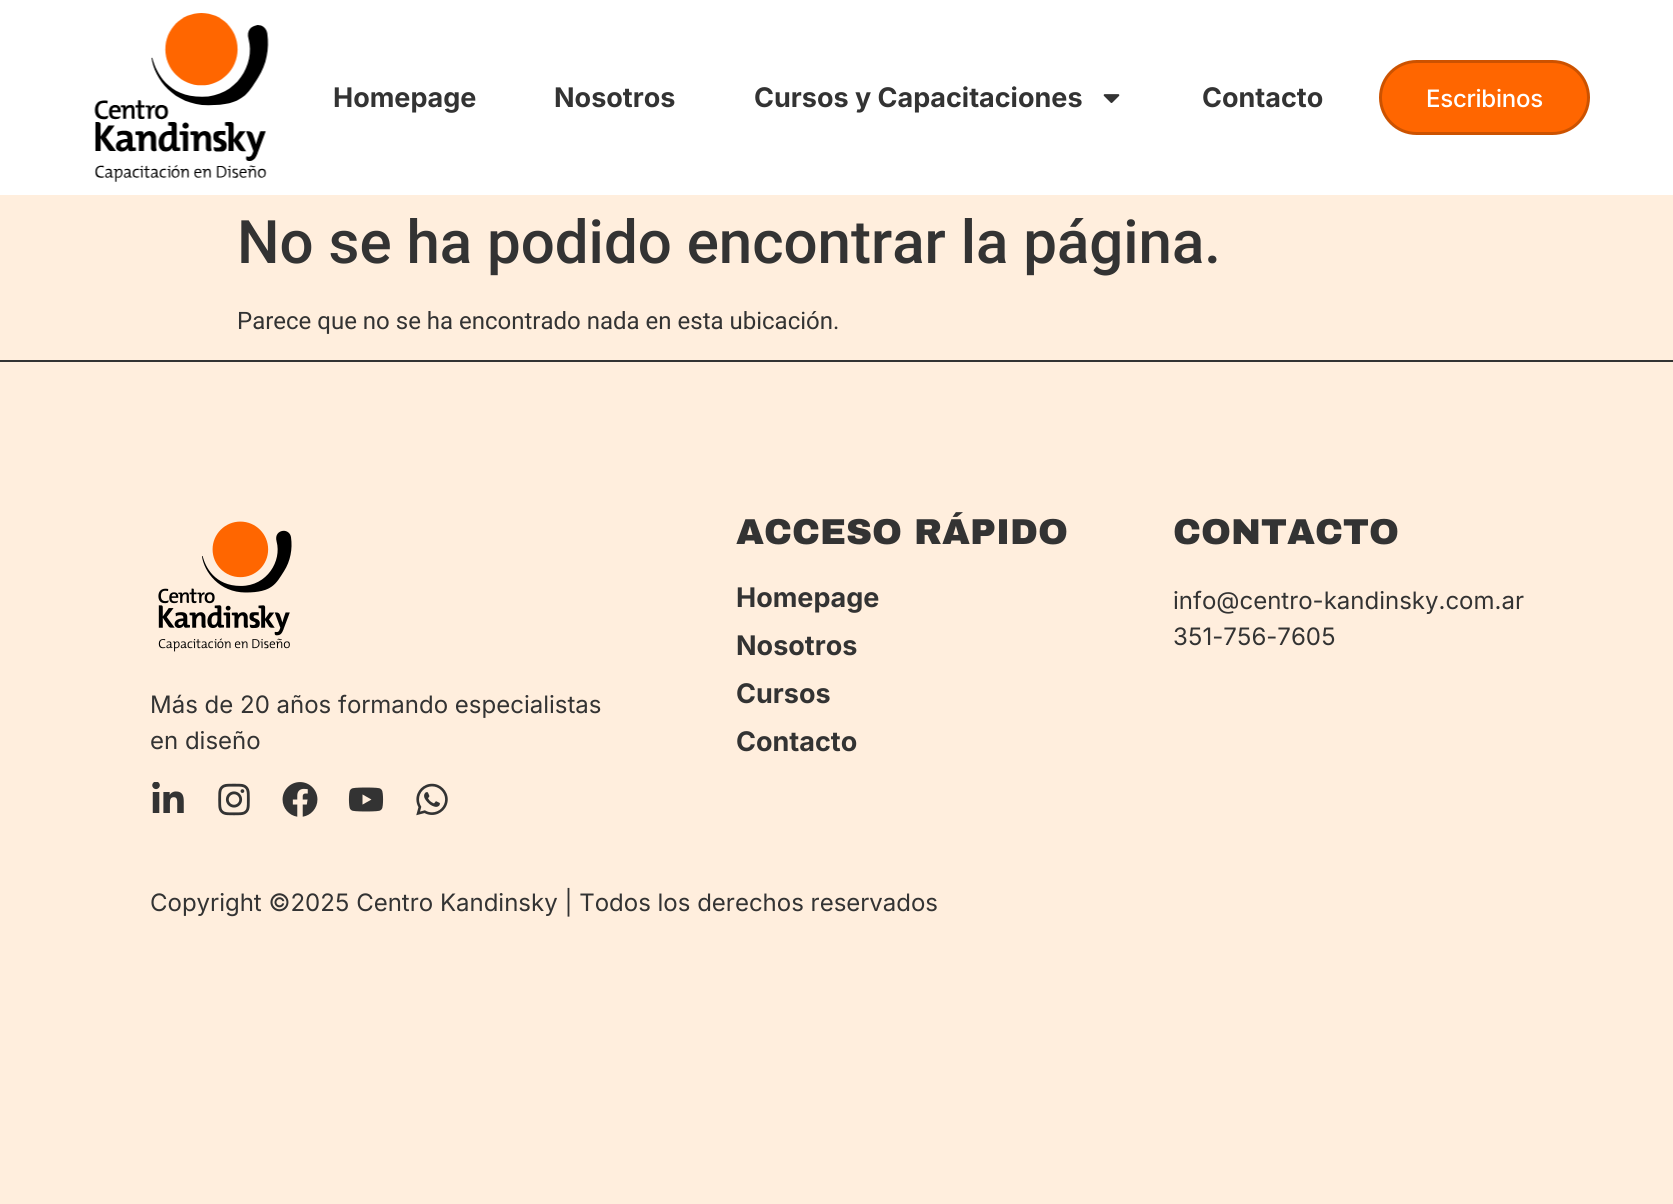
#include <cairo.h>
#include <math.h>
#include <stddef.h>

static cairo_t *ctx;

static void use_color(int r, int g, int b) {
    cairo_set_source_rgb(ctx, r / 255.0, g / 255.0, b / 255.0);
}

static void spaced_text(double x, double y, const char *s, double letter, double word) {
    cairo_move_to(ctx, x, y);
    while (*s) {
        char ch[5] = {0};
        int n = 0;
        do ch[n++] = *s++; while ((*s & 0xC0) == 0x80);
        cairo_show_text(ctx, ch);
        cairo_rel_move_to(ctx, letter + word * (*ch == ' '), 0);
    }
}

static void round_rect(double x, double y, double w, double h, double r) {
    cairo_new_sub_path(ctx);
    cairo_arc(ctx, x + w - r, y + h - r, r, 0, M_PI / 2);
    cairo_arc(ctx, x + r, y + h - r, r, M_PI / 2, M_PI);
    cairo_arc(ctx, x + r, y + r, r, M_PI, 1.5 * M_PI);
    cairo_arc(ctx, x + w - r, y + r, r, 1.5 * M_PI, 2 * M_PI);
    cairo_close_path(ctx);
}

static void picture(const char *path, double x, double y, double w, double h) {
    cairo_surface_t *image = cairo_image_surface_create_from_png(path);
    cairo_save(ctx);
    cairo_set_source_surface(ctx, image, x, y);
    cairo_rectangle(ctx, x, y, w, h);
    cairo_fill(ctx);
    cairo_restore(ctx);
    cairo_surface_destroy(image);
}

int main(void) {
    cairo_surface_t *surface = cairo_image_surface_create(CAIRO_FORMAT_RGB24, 1673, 1204);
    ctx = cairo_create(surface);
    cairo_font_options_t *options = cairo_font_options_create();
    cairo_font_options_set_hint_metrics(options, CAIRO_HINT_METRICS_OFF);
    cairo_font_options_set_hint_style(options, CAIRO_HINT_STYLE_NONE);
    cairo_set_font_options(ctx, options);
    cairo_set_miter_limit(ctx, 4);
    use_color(255, 238, 221);
    cairo_paint(ctx);
    use_color(255, 255, 255);
    cairo_rectangle(ctx, 0, 0, 1673, 195);
    cairo_fill(ctx);
    picture("img1.png", 94, 13, 175, 169);
    cairo_select_font_face(ctx, "Inter", CAIRO_FONT_SLANT_NORMAL, CAIRO_FONT_WEIGHT_BOLD);
    cairo_set_font_size(ctx, 27);
    use_color(51, 51, 51);
    cairo_move_to(ctx, 333, 107);
    cairo_show_text(ctx, "Homepage");
    cairo_move_to(ctx, 554, 107);
    cairo_show_text(ctx, "Nosotros");
    cairo_move_to(ctx, 754, 107);
    cairo_show_text(ctx, "Cursos y Capacitaciones");
    picture("img2.png", 1103, 94, 17, 9);
    cairo_move_to(ctx, 1202, 107);
    cairo_show_text(ctx, "Contacto");
    use_color(255, 102, 0);
    round_rect(1380.5, 61.5, 208, 72, 36);
    cairo_fill_preserve(ctx);
    use_color(204, 82, 0);
    cairo_set_line_width(ctx, 3);
    cairo_stroke(ctx);
    cairo_select_font_face(ctx, "Inter Medium", CAIRO_FONT_SLANT_NORMAL, CAIRO_FONT_WEIGHT_NORMAL);
    cairo_set_font_size(ctx, 24);
    use_color(255, 255, 255);
    spaced_text(1426, 107, "Escribinos", -0.25, 0);
    cairo_select_font_face(ctx, "Roboto Medium", CAIRO_FONT_SLANT_NORMAL, CAIRO_FONT_WEIGHT_NORMAL);
    cairo_set_font_size(ctx, 60);
    use_color(51, 51, 51);
    cairo_move_to(ctx, 237, 263);
    cairo_show_text(ctx, "No se ha podido encontrar la página.");
    cairo_select_font_face(ctx, "Roboto", CAIRO_FONT_SLANT_NORMAL, CAIRO_FONT_WEIGHT_NORMAL);
    cairo_set_font_size(ctx, 24);
    cairo_move_to(ctx, 237, 329);
    cairo_show_text(ctx, "Parece que no se ha encontrado nada en esta ubicación.");
    cairo_rectangle(ctx, 0, 360, 1673, 2);
    cairo_fill(ctx);
    cairo_select_font_face(ctx, "Archivo Black", CAIRO_FONT_SLANT_NORMAL, CAIRO_FONT_WEIGHT_NORMAL);
    cairo_set_font_size(ctx, 36);
    cairo_move_to(ctx, 736, 544);
    cairo_show_text(ctx, "ACCESO RÁPIDO");
    cairo_select_font_face(ctx, "Inter", CAIRO_FONT_SLANT_NORMAL, CAIRO_FONT_WEIGHT_BOLD);
    cairo_set_font_size(ctx, 27);
    cairo_move_to(ctx, 736, 607);
    cairo_show_text(ctx, "Homepage");
    cairo_move_to(ctx, 736, 655);
    cairo_show_text(ctx, "Nosotros");
    cairo_move_to(ctx, 736, 703);
    cairo_show_text(ctx, "Cursos");
    cairo_move_to(ctx, 736, 751);
    cairo_show_text(ctx, "Contacto");
    cairo_select_font_face(ctx, "Archivo Black", CAIRO_FONT_SLANT_NORMAL, CAIRO_FONT_WEIGHT_NORMAL);
    cairo_set_font_size(ctx, 36);
    cairo_move_to(ctx, 1173, 544);
    cairo_show_text(ctx, "CONTACTO");
    cairo_select_font_face(ctx, "Inter", CAIRO_FONT_SLANT_NORMAL, CAIRO_FONT_WEIGHT_NORMAL);
    cairo_set_font_size(ctx, 24);
    cairo_move_to(ctx, 1173, 609);
    cairo_show_text(ctx, "info@centro-kandinsky.com.ar");
    cairo_move_to(ctx, 1173, 645);
    cairo_show_text(ctx, "351-756-7605");
    picture("img3.png", 158, 521, 134, 131);
    cairo_move_to(ctx, 150, 713);
    cairo_show_text(ctx, "Más de 20 años formando especialistas");
    cairo_move_to(ctx, 150, 749);
    cairo_show_text(ctx, "en diseño");
    picture("img4.png", 152, 782, 32, 31);
    picture("img5.png", 218, 783, 32, 33);
    picture("img6.png", 282, 782, 36, 35);
    picture("img7.png", 348, 787, 36, 25);
    picture("img8.png", 416, 783, 32, 33);
    cairo_move_to(ctx, 150, 911);
    cairo_show_text(ctx, "Copyright ©2025 Centro Kandinsky | Todos los derechos reservados");
    cairo_surface_write_to_png(surface, "result.png");
    cairo_font_options_destroy(options);
    cairo_destroy(ctx);
    cairo_surface_destroy(surface);
    return 0;
}
